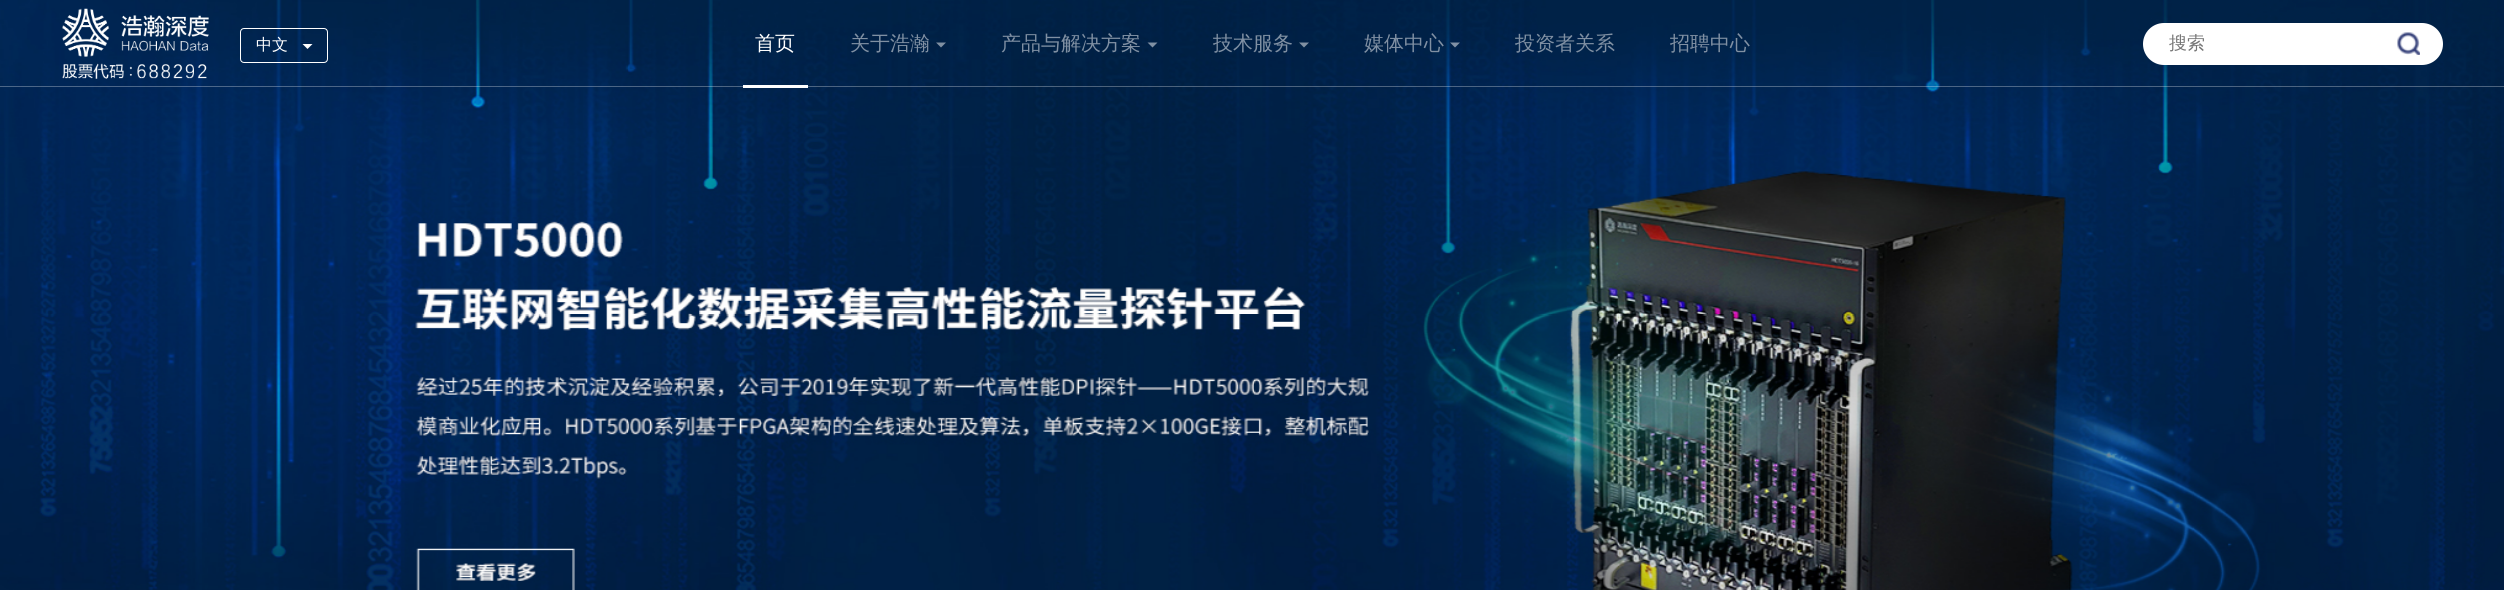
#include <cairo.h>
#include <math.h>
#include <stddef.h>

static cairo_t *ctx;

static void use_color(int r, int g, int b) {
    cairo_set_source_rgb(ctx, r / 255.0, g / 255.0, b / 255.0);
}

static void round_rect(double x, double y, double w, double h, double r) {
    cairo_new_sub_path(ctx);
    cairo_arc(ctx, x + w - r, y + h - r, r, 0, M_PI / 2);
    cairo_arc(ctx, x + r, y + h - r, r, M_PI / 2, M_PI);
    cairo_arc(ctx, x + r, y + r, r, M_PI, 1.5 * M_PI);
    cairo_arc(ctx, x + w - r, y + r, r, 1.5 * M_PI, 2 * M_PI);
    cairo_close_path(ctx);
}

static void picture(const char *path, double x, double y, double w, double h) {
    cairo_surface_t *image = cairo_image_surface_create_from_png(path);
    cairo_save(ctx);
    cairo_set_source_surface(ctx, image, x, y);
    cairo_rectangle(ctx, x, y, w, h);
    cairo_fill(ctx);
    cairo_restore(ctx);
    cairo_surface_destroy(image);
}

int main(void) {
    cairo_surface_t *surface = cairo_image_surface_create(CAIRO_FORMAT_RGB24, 2504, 590);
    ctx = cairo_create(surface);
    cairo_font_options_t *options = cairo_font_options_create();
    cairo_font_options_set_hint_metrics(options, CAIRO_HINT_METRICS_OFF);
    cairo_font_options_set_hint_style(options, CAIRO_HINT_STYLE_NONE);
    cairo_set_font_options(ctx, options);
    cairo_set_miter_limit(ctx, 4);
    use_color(255, 255, 255);
    cairo_paint(ctx);
    picture("img1.png", 0, 0, 2504, 590);
    picture("img2.png", 62, 8, 147, 71);
    round_rect(240.5, 28.5, 87, 34, 3.5);
    use_color(255, 255, 255);
    cairo_set_line_width(ctx, 1);
    cairo_stroke(ctx);
    cairo_select_font_face(ctx, "WenQuanYi Zen Hei Medium", CAIRO_FONT_SLANT_NORMAL, CAIRO_FONT_WEIGHT_NORMAL);
    cairo_set_font_size(ctx, 16);
    cairo_move_to(ctx, 256, 50);
    cairo_show_text(ctx, "中文");
    cairo_new_path(ctx);
    cairo_move_to(ctx, 302.5, 44);
    cairo_line_to(ctx, 312.5, 44);
    cairo_line_to(ctx, 307.5, 49);
    cairo_close_path(ctx);
    cairo_fill(ctx);
    cairo_set_font_size(ctx, 20);
    cairo_move_to(ctx, 755, 50);
    cairo_show_text(ctx, "首页");
    cairo_rectangle(ctx, 743, 85, 65, 3);
    cairo_fill(ctx);
    use_color(128, 144, 163);
    cairo_move_to(ctx, 850, 50);
    cairo_show_text(ctx, "关于浩瀚");
    use_color(128, 144, 162);
    cairo_new_path(ctx);
    cairo_move_to(ctx, 936, 42.5);
    cairo_line_to(ctx, 946, 42.5);
    cairo_line_to(ctx, 941, 47.5);
    cairo_close_path(ctx);
    cairo_fill(ctx);
    use_color(128, 144, 163);
    cairo_move_to(ctx, 1001, 50);
    cairo_show_text(ctx, "产品与解决方案");
    cairo_set_source_rgba(ctx, 1, 1, 1, 0.5);
    cairo_new_path(ctx);
    cairo_move_to(ctx, 1147.5, 42.5);
    cairo_line_to(ctx, 1157.5, 42.5);
    cairo_line_to(ctx, 1152.5, 47.5);
    cairo_close_path(ctx);
    cairo_fill(ctx);
    use_color(128, 144, 163);
    cairo_move_to(ctx, 1213, 50);
    cairo_show_text(ctx, "技术服务");
    use_color(128, 144, 162);
    cairo_new_path(ctx);
    cairo_move_to(ctx, 1299, 42.5);
    cairo_line_to(ctx, 1309, 42.5);
    cairo_line_to(ctx, 1304, 47.5);
    cairo_close_path(ctx);
    cairo_fill(ctx);
    use_color(128, 144, 163);
    cairo_move_to(ctx, 1364, 50);
    cairo_show_text(ctx, "媒体中心");
    cairo_set_source_rgba(ctx, 1, 1, 1, 0.5);
    cairo_new_path(ctx);
    cairo_move_to(ctx, 1450, 42.5);
    cairo_line_to(ctx, 1460, 42.5);
    cairo_line_to(ctx, 1455, 47.5);
    cairo_close_path(ctx);
    cairo_fill(ctx);
    use_color(128, 144, 163);
    cairo_move_to(ctx, 1515, 50);
    cairo_show_text(ctx, "投资者关系");
    cairo_move_to(ctx, 1670, 50);
    cairo_show_text(ctx, "招聘中心");
    use_color(255, 255, 255);
    round_rect(2143, 23, 300, 42, 21);
    cairo_fill(ctx);
    cairo_set_font_size(ctx, 18);
    use_color(117, 117, 117);
    cairo_move_to(ctx, 2169, 49);
    cairo_show_text(ctx, "搜索");
    picture("img3.png", 2397, 32, 23, 23);
    cairo_set_source_rgba(ctx, 1, 1, 1, 0.3);
    cairo_rectangle(ctx, 0, 86, 2504, 1);
    cairo_fill(ctx);
    cairo_surface_write_to_png(surface, "result.png");
    cairo_font_options_destroy(options);
    cairo_destroy(ctx);
    cairo_surface_destroy(surface);
    return 0;
}
